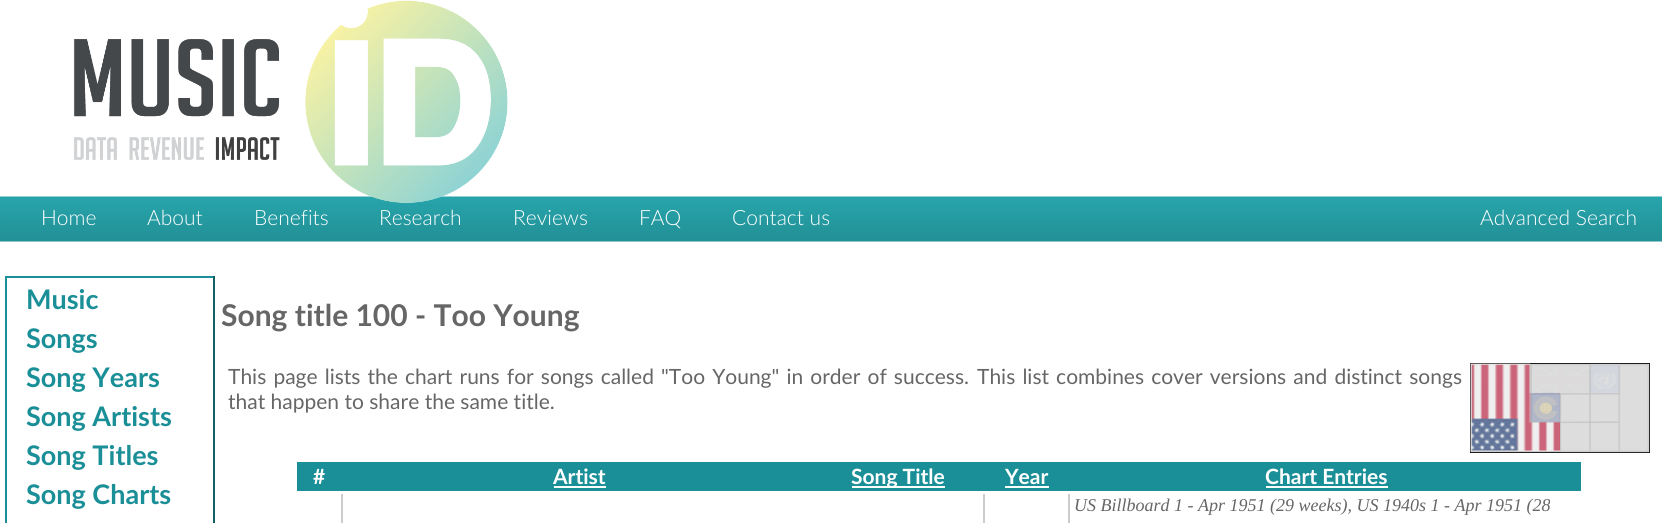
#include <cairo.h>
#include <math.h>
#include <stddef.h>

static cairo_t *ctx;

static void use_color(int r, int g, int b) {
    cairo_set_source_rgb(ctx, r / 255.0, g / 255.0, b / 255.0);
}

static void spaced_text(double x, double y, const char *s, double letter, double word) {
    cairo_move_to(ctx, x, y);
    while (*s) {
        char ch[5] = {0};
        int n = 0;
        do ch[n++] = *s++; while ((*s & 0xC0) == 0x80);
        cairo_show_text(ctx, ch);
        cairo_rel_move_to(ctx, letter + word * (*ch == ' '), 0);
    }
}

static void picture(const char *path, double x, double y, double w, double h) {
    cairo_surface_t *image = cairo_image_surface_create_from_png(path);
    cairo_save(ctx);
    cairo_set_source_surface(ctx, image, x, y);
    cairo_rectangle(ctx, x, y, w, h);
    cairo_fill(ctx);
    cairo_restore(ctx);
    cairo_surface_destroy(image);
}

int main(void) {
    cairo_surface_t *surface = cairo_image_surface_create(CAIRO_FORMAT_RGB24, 1662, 523);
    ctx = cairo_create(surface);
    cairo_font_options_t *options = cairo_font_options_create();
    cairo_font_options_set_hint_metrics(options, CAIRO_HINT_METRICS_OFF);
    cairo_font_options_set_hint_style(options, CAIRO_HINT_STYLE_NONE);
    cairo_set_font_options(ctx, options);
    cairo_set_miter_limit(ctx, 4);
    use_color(255, 255, 255);
    cairo_paint(ctx);
    picture("img2.png", 0, 196, 1662, 46);
    picture("img1.png", 73, 0, 435, 204);
    cairo_select_font_face(ctx, "Lato Light", CAIRO_FONT_SLANT_NORMAL, CAIRO_FONT_WEIGHT_NORMAL);
    cairo_set_font_size(ctx, 21);
    use_color(255, 255, 255);
    cairo_move_to(ctx, 41, 225);
    cairo_show_text(ctx, "Home");
    cairo_move_to(ctx, 147, 225);
    cairo_show_text(ctx, "About");
    cairo_move_to(ctx, 254, 225);
    cairo_show_text(ctx, "Benefits");
    cairo_move_to(ctx, 379, 225);
    cairo_show_text(ctx, "Research");
    cairo_move_to(ctx, 513, 225);
    cairo_show_text(ctx, "Reviews");
    cairo_move_to(ctx, 639, 225);
    cairo_show_text(ctx, "FAQ");
    cairo_move_to(ctx, 732, 225);
    cairo_show_text(ctx, "Contact us");
    cairo_move_to(ctx, 1480, 225);
    cairo_show_text(ctx, "Advanced Search");
    use_color(27, 143, 151);
    cairo_rectangle(ctx, 5, 276, 210, 2);
    cairo_fill(ctx);
    use_color(18, 95, 101);
    cairo_rectangle(ctx, 213, 276, 2, 247);
    cairo_fill(ctx);
    use_color(27, 143, 151);
    cairo_rectangle(ctx, 5, 276, 2, 247);
    cairo_fill(ctx);
    cairo_select_font_face(ctx, "Lato", CAIRO_FONT_SLANT_NORMAL, CAIRO_FONT_WEIGHT_BOLD);
    cairo_set_font_size(ctx, 27);
    cairo_move_to(ctx, 26, 309);
    cairo_show_text(ctx, "Music");
    cairo_move_to(ctx, 26, 348);
    cairo_show_text(ctx, "Songs");
    cairo_move_to(ctx, 26, 387);
    cairo_show_text(ctx, "Song Years");
    cairo_move_to(ctx, 26, 426);
    cairo_show_text(ctx, "Song Artists");
    cairo_move_to(ctx, 26, 465);
    cairo_show_text(ctx, "Song Titles");
    cairo_move_to(ctx, 26, 504);
    cairo_show_text(ctx, "Song Charts");
    cairo_set_font_size(ctx, 30);
    use_color(102, 102, 102);
    cairo_move_to(ctx, 221, 326);
    cairo_show_text(ctx, "Song title 100 - Too Young");
    cairo_select_font_face(ctx, "Lato", CAIRO_FONT_SLANT_NORMAL, CAIRO_FONT_WEIGHT_NORMAL);
    cairo_set_font_size(ctx, 21);
    spaced_text(228, 384, "This page lists the chart runs for songs called \"Too Young\" in order of success.", 0, 1.75);
    spaced_text(977, 384, "This list combines cover versions and distinct songs", 0, 1.75);
    cairo_move_to(ctx, 228, 409);
    cairo_show_text(ctx, "that happen to share the same title.");
    picture("img3.png", 1470, 363, 180, 90);
    use_color(27, 143, 151);
    cairo_rectangle(ctx, 297, 462, 1284, 29);
    cairo_fill(ctx);
    cairo_select_font_face(ctx, "Lato", CAIRO_FONT_SLANT_NORMAL, CAIRO_FONT_WEIGHT_BOLD);
    use_color(255, 255, 255);
    cairo_move_to(ctx, 313, 484);
    cairo_show_text(ctx, "#");
    cairo_move_to(ctx, 553, 484);
    cairo_show_text(ctx, "Artist");
    cairo_rectangle(ctx, 554, 486, 52, 2);
    cairo_fill(ctx);
    cairo_rectangle(ctx, 852, 486, 93, 2);
    cairo_fill(ctx);
    cairo_move_to(ctx, 851, 484);
    cairo_show_text(ctx, "Song Title");
    cairo_move_to(ctx, 1005, 484);
    cairo_show_text(ctx, "Year");
    cairo_rectangle(ctx, 1005, 486, 44, 2);
    cairo_fill(ctx);
    cairo_move_to(ctx, 1265, 484);
    cairo_show_text(ctx, "Chart Entries");
    cairo_rectangle(ctx, 1266, 486, 122, 2);
    cairo_fill(ctx);
    use_color(204, 204, 204);
    cairo_rectangle(ctx, 341, 494, 2, 29);
    cairo_fill(ctx);
    cairo_rectangle(ctx, 1068, 494, 2, 29);
    cairo_fill(ctx);
    cairo_rectangle(ctx, 983, 494, 2, 29);
    cairo_fill(ctx);
    cairo_select_font_face(ctx, "Liberation Serif", CAIRO_FONT_SLANT_ITALIC, CAIRO_FONT_WEIGHT_NORMAL);
    cairo_set_font_size(ctx, 18);
    use_color(102, 102, 102);
    cairo_move_to(ctx, 1074, 511);
    cairo_show_text(ctx, "US Billboard 1 - Apr 1951 (29 weeks), US 1940s 1 - Apr 1951 (28");
    cairo_surface_write_to_png(surface, "result.png");
    cairo_font_options_destroy(options);
    cairo_destroy(ctx);
    cairo_surface_destroy(surface);
    return 0;
}
